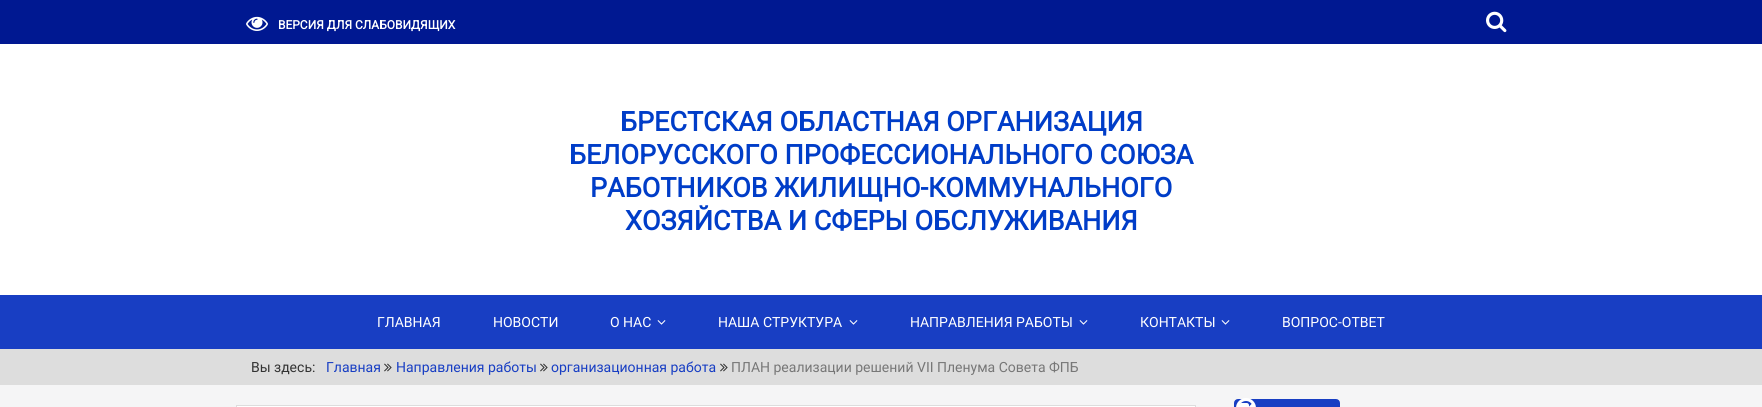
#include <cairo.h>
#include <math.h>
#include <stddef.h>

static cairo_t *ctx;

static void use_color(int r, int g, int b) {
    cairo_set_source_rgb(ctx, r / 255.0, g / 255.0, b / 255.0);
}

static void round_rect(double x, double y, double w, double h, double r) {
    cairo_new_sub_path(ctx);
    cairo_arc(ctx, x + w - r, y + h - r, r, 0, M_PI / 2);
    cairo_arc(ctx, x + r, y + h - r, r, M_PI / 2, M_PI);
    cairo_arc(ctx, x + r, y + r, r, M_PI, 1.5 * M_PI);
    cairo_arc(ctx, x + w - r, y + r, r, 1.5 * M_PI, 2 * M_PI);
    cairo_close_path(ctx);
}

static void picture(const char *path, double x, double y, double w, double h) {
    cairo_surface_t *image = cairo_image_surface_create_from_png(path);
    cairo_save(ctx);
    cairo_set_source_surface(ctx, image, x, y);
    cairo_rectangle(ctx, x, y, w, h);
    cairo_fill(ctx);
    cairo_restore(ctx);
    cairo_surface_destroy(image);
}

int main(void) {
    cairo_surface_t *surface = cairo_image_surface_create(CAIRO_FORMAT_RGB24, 1762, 407);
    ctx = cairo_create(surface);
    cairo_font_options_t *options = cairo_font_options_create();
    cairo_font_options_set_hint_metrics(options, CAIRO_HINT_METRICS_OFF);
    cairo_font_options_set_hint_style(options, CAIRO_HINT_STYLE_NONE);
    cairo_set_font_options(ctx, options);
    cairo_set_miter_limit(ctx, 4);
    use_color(245, 245, 246);
    cairo_paint(ctx);
    use_color(0, 24, 145);
    cairo_rectangle(ctx, 0, 0, 1762, 44);
    cairo_fill(ctx);
    picture("img1.png", 246, 16, 22, 15);
    cairo_select_font_face(ctx, "Roboto", CAIRO_FONT_SLANT_NORMAL, CAIRO_FONT_WEIGHT_BOLD);
    cairo_set_font_size(ctx, 12);
    use_color(255, 255, 255);
    cairo_move_to(ctx, 278, 29);
    cairo_show_text(ctx, "ВЕРСИЯ ДЛЯ СЛАБОВИДЯЩИХ");
    picture("img2.png", 1486, 11, 21, 22);
    cairo_rectangle(ctx, 0, 44, 1762, 251);
    cairo_fill(ctx);
    cairo_set_font_size(ctx, 27);
    use_color(0, 61, 200);
    cairo_move_to(ctx, 620, 131);
    cairo_show_text(ctx, "БРЕСТСКАЯ ОБЛАСТНАЯ ОРГАНИЗАЦИЯ");
    cairo_move_to(ctx, 569, 164);
    cairo_show_text(ctx, "БЕЛОРУССКОГО ПРОФЕССИОНАЛЬНОГО СОЮЗА");
    cairo_move_to(ctx, 590, 197);
    cairo_show_text(ctx, "РАБОТНИКОВ ЖИЛИЩНО-КОММУНАЛЬНОГО");
    cairo_move_to(ctx, 625, 230);
    cairo_show_text(ctx, "ХОЗЯЙСТВА И СФЕРЫ ОБСЛУЖИВАНИЯ");
    use_color(24, 62, 195);
    cairo_rectangle(ctx, 0, 295, 1762, 54);
    cairo_fill(ctx);
    cairo_select_font_face(ctx, "Roboto", CAIRO_FONT_SLANT_NORMAL, CAIRO_FONT_WEIGHT_NORMAL);
    cairo_set_font_size(ctx, 14);
    use_color(255, 255, 255);
    cairo_move_to(ctx, 377, 327);
    cairo_show_text(ctx, "ГЛАВНАЯ");
    cairo_move_to(ctx, 493, 327);
    cairo_show_text(ctx, "НОВОСТИ");
    cairo_move_to(ctx, 610, 327);
    cairo_show_text(ctx, "О НАС");
    picture("img3.png", 657, 320, 9, 5);
    cairo_move_to(ctx, 718, 327);
    cairo_show_text(ctx, "НАША СТРУКТУРА");
    picture("img3.png", 849, 320, 9, 5);
    cairo_move_to(ctx, 910, 327);
    cairo_show_text(ctx, "НАПРАВЛЕНИЯ РАБОТЫ");
    picture("img3.png", 1079, 320, 9, 5);
    cairo_move_to(ctx, 1140, 327);
    cairo_show_text(ctx, "КОНТАКТЫ");
    picture("img3.png", 1221, 320, 9, 5);
    cairo_move_to(ctx, 1282, 327);
    cairo_show_text(ctx, "ВОПРОС-ОТВЕТ");
    use_color(221, 221, 221);
    cairo_rectangle(ctx, 0, 349, 1762, 36);
    cairo_fill(ctx);
    use_color(51, 51, 51);
    cairo_move_to(ctx, 251, 372);
    cairo_show_text(ctx, "Вы здесь:");
    use_color(24, 62, 195);
    cairo_move_to(ctx, 326, 372);
    cairo_show_text(ctx, "Главная");
    picture("img4.png", 384, 363, 8, 9);
    cairo_move_to(ctx, 396, 372);
    cairo_show_text(ctx, "Направления работы");
    picture("img4.png", 540, 363, 8, 9);
    cairo_move_to(ctx, 551, 372);
    cairo_show_text(ctx, "организационная работа");
    picture("img4.png", 720, 363, 8, 9);
    use_color(119, 119, 119);
    cairo_move_to(ctx, 731, 372);
    cairo_show_text(ctx, "ПЛАН реализации решений VII Пленума Совета ФПБ");
    use_color(255, 255, 255);
    cairo_rectangle(ctx, 236.5, 405.5, 959, 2);
    cairo_fill_preserve(ctx);
    use_color(221, 221, 221);
    cairo_set_line_width(ctx, 1);
    cairo_stroke(ctx);
    use_color(24, 62, 195);
    round_rect(1235, 400, 104, 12, 3);
    cairo_fill_preserve(ctx);
    cairo_set_line_width(ctx, 2);
    cairo_stroke(ctx);
    cairo_arc(ctx, 1246, 408, 8.5, 0, 2 * M_PI);
    use_color(255, 255, 255);
    cairo_set_line_width(ctx, 3);
    cairo_stroke(ctx);
    picture("img5.png", 1239, 403, 14, 4);
    cairo_surface_write_to_png(surface, "result.png");
    cairo_font_options_destroy(options);
    cairo_destroy(ctx);
    cairo_surface_destroy(surface);
    return 0;
}
